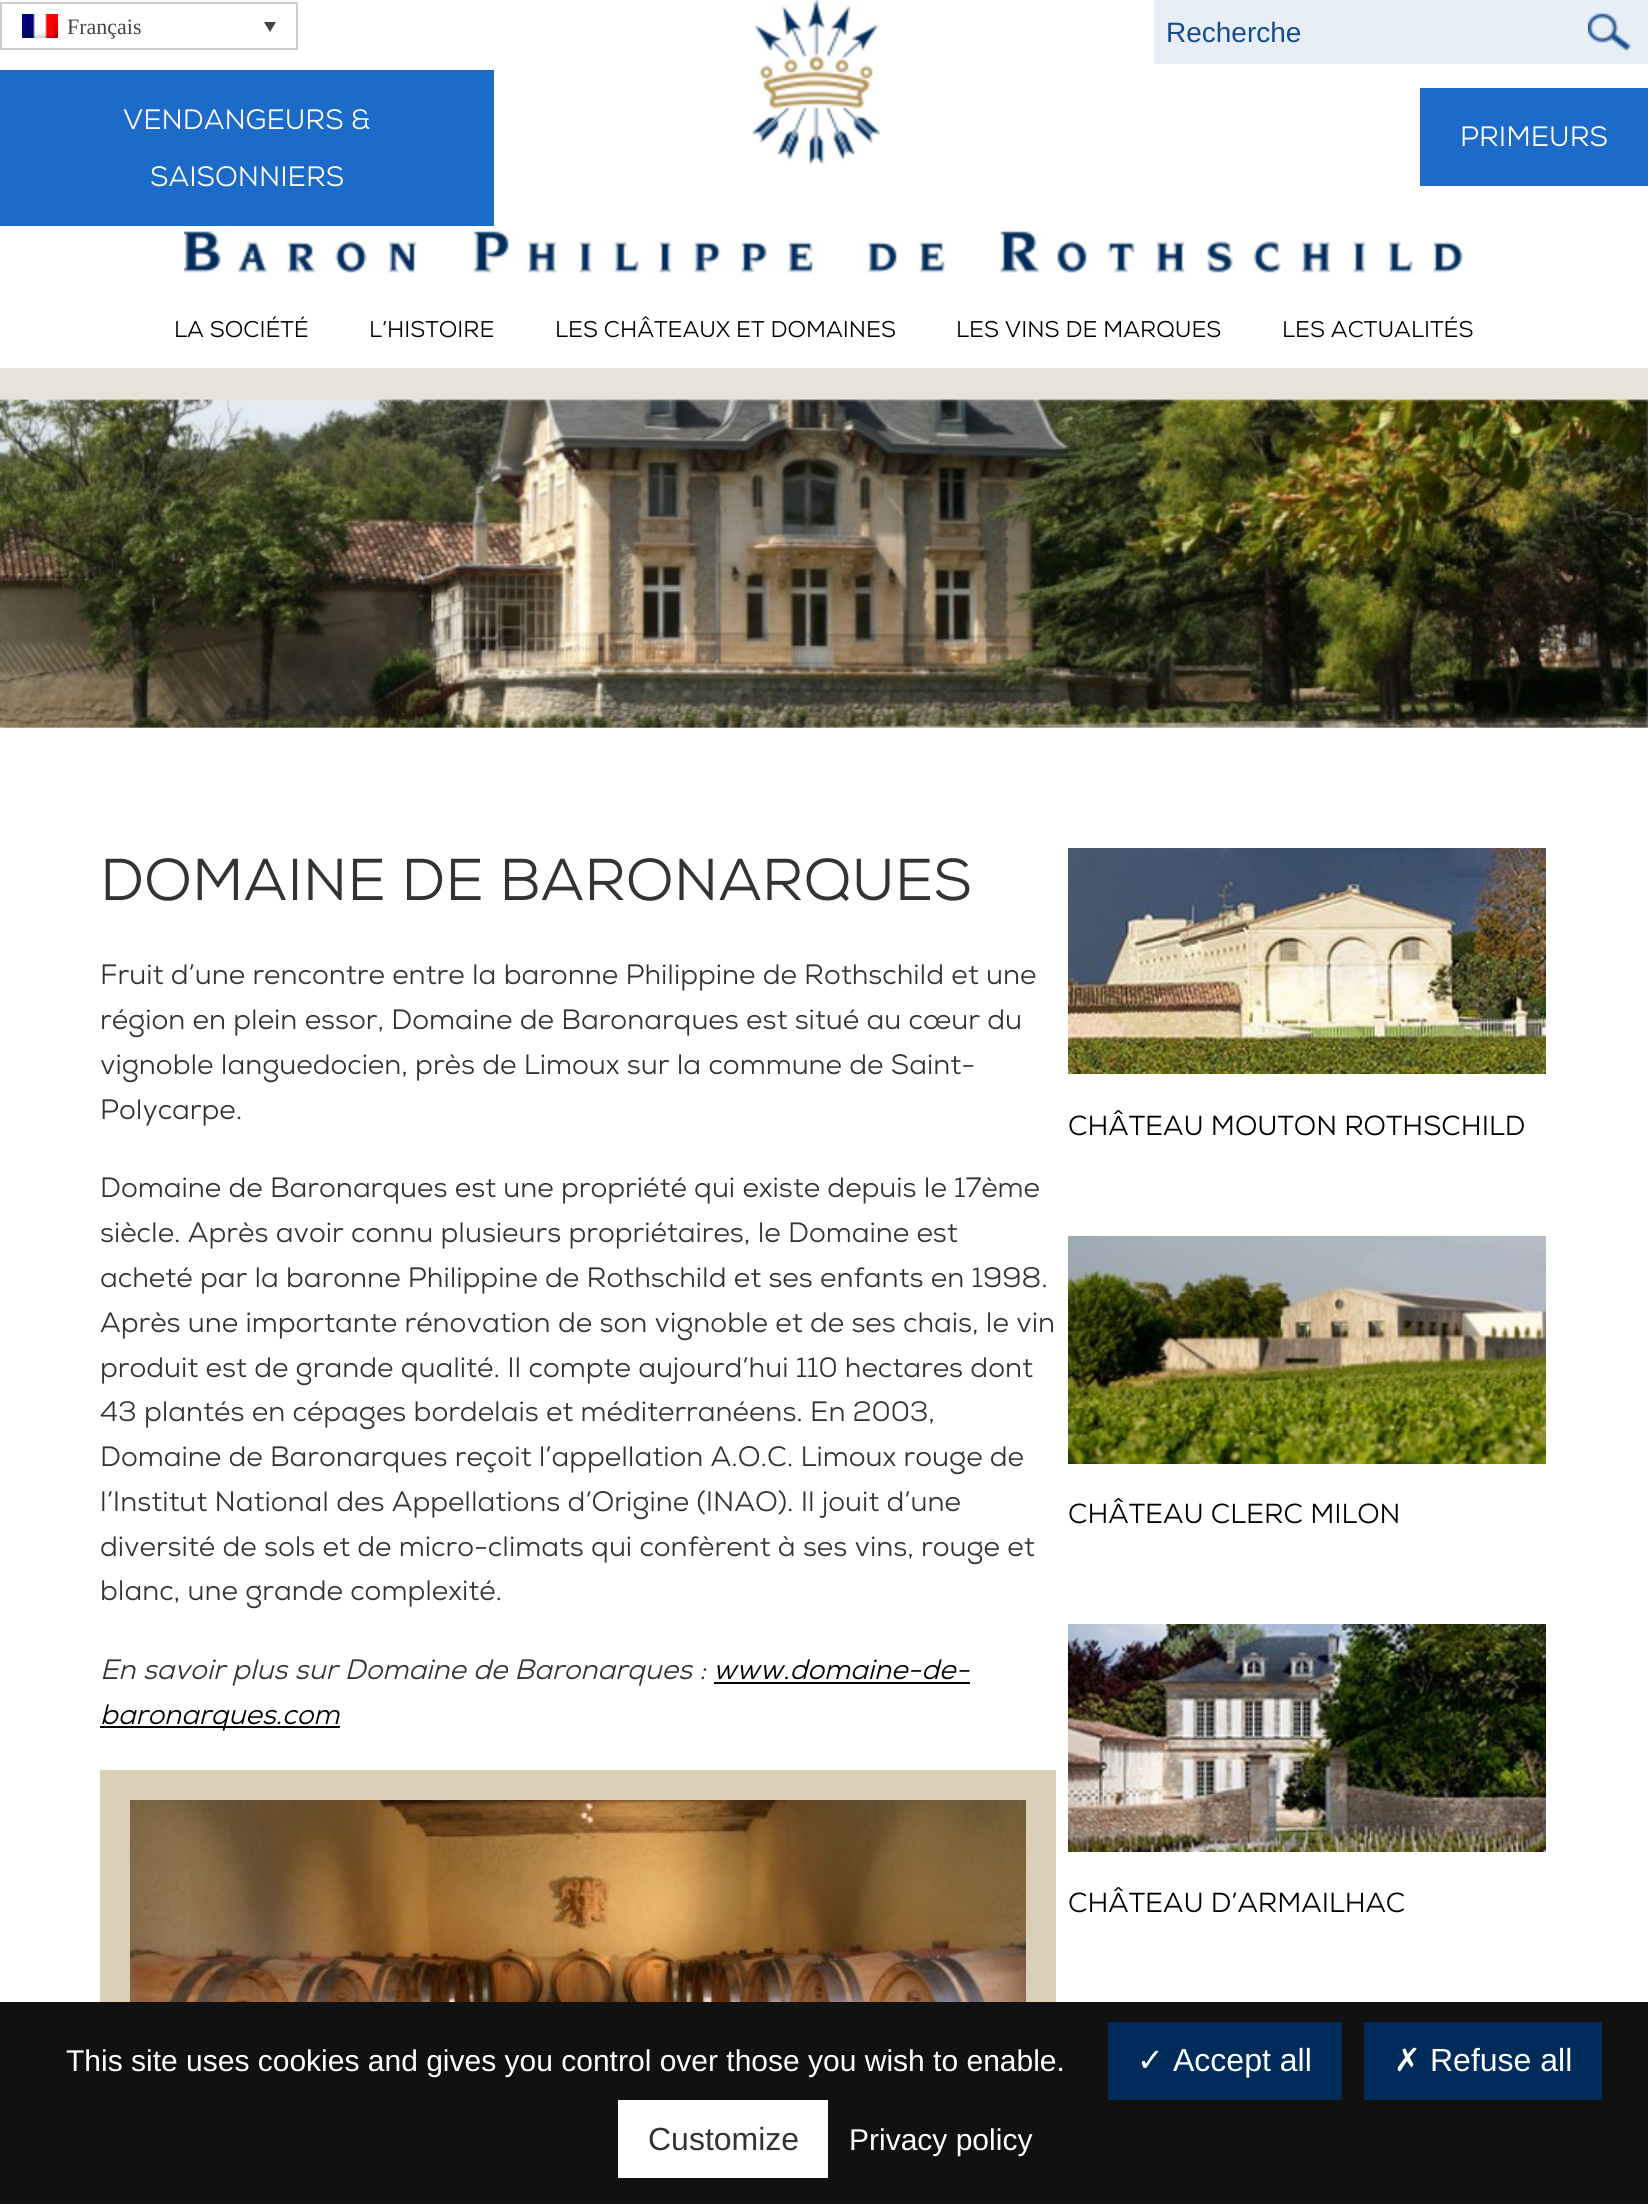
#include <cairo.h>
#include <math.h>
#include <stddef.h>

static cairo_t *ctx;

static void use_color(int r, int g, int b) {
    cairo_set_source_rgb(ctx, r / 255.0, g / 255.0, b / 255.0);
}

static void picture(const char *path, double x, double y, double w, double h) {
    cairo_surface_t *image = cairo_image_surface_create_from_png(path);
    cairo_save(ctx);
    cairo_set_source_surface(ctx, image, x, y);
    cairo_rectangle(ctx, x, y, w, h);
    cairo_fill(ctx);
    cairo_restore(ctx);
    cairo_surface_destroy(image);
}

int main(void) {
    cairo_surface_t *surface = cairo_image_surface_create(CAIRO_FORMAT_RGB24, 1648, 2204);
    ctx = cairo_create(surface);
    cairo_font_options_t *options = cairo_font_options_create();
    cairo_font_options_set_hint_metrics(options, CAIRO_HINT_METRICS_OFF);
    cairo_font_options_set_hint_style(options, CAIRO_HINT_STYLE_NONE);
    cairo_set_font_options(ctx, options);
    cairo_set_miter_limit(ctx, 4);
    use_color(255, 255, 255);
    cairo_paint(ctx);
    cairo_rectangle(ctx, 1, 3, 296, 46);
    use_color(205, 205, 205);
    cairo_stroke(ctx);
    picture("img1.png", 22, 14, 36, 24);
    cairo_select_font_face(ctx, "Liberation Serif", CAIRO_FONT_SLANT_NORMAL, CAIRO_FONT_WEIGHT_NORMAL);
    cairo_set_font_size(ctx, 22);
    use_color(68, 68, 68);
    cairo_move_to(ctx, 67, 34);
    cairo_show_text(ctx, "Français");
    cairo_new_path(ctx);
    cairo_move_to(ctx, 264, 22);
    cairo_line_to(ctx, 276, 22);
    cairo_line_to(ctx, 270, 32);
    cairo_close_path(ctx);
    cairo_fill(ctx);
    use_color(28, 107, 201);
    cairo_rectangle(ctx, 0, 70, 494, 156);
    cairo_fill(ctx);
    cairo_select_font_face(ctx, "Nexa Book", CAIRO_FONT_SLANT_NORMAL, CAIRO_FONT_WEIGHT_NORMAL);
    cairo_set_font_size(ctx, 28);
    use_color(255, 255, 255);
    cairo_move_to(ctx, 123, 129);
    cairo_show_text(ctx, "VENDANGEURS &");
    cairo_move_to(ctx, 150, 186);
    cairo_show_text(ctx, "SAISONNIERS");
    picture("img2.png", 752, 0, 128, 164);
    use_color(232, 238, 245);
    cairo_rectangle(ctx, 1154, 0, 494, 64);
    cairo_fill(ctx);
    picture("img3.png", 1588, 13, 43, 38);
    cairo_select_font_face(ctx, "Liberation Sans", CAIRO_FONT_SLANT_NORMAL, CAIRO_FONT_WEIGHT_NORMAL);
    use_color(22, 76, 140);
    cairo_move_to(ctx, 1166, 42);
    cairo_show_text(ctx, "Recherche");
    use_color(28, 107, 201);
    cairo_rectangle(ctx, 1420, 88, 228, 98);
    cairo_fill(ctx);
    cairo_select_font_face(ctx, "Nexa Book", CAIRO_FONT_SLANT_NORMAL, CAIRO_FONT_WEIGHT_NORMAL);
    use_color(255, 255, 255);
    cairo_move_to(ctx, 1460, 146);
    cairo_show_text(ctx, "PRIMEURS");
    picture("img4.png", 184, 231, 1279, 42);
    cairo_set_font_size(ctx, 22.75);
    use_color(0, 0, 0);
    cairo_move_to(ctx, 174, 337);
    cairo_show_text(ctx, "LA SOCIÉTÉ");
    cairo_move_to(ctx, 369, 337);
    cairo_show_text(ctx, "L’HISTOIRE");
    cairo_move_to(ctx, 555, 337);
    cairo_show_text(ctx, "LES CHÂTEAUX ET DOMAINES");
    cairo_move_to(ctx, 956, 337);
    cairo_show_text(ctx, "LES VINS DE MARQUES");
    cairo_move_to(ctx, 1282, 337);
    cairo_show_text(ctx, "LES ACTUALITÉS");
    use_color(232, 227, 217);
    cairo_rectangle(ctx, 0, 368, 1648, 320);
    cairo_fill(ctx);
    picture("img5.png", 0, 399, 1648, 329);
    cairo_set_font_size(ctx, 58.9);
    use_color(51, 51, 51);
    cairo_move_to(ctx, 100, 900);
    cairo_show_text(ctx, "DOMAINE DE BARONARQUES");
    cairo_set_font_size(ctx, 28);
    cairo_move_to(ctx, 100, 984);
    cairo_show_text(ctx, "Fruit d’une rencontre entre la baronne Philippine de Rothschild et une");
    cairo_move_to(ctx, 100, 1029);
    cairo_show_text(ctx, "région en plein essor, Domaine de Baronarques est situé au cœur du");
    cairo_move_to(ctx, 100, 1074);
    cairo_show_text(ctx, "vignoble languedocien, près de Limoux sur la commune de Saint-");
    cairo_move_to(ctx, 100, 1119);
    cairo_show_text(ctx, "Polycarpe.");
    cairo_move_to(ctx, 100, 1197);
    cairo_show_text(ctx, "Domaine de Baronarques est une propriété qui existe depuis le 17ème");
    cairo_move_to(ctx, 100, 1242);
    cairo_show_text(ctx, "siècle. Après avoir connu plusieurs propriétaires, le Domaine est");
    cairo_move_to(ctx, 100, 1287);
    cairo_show_text(ctx, "acheté par la baronne Philippine de Rothschild et ses enfants en 1998.");
    cairo_move_to(ctx, 100, 1332);
    cairo_show_text(ctx, "Après une importante rénovation de son vignoble et de ses chais, le vin");
    cairo_move_to(ctx, 100, 1377);
    cairo_show_text(ctx, "produit est de grande qualité. Il compte aujourd’hui 110 hectares dont");
    cairo_move_to(ctx, 100, 1421);
    cairo_show_text(ctx, "43 plantés en cépages bordelais et méditerranéens. En 2003,");
    cairo_move_to(ctx, 100, 1466);
    cairo_show_text(ctx, "Domaine de Baronarques reçoit l’appellation A.O.C. Limoux rouge de");
    cairo_move_to(ctx, 100, 1511);
    cairo_show_text(ctx, "l’Institut National des Appellations d’Origine (INAO). Il jouit d’une");
    cairo_move_to(ctx, 100, 1556);
    cairo_show_text(ctx, "diversité de sols et de micro-climats qui confèrent à ses vins, rouge et");
    cairo_move_to(ctx, 100, 1600);
    cairo_show_text(ctx, "blanc, une grande complexité.");
    cairo_select_font_face(ctx, "Nexa Book", CAIRO_FONT_SLANT_ITALIC, CAIRO_FONT_WEIGHT_NORMAL);
    cairo_move_to(ctx, 100, 1679);
    cairo_show_text(ctx, "En savoir plus sur Domaine de Baronarques :");
    use_color(0, 0, 0);
    cairo_move_to(ctx, 713, 1679);
    cairo_show_text(ctx, "www.domaine-de-");
    cairo_rectangle(ctx, 714, 1682, 256, 2);
    cairo_fill(ctx);
    cairo_rectangle(ctx, 100, 1726, 240, 2);
    cairo_fill(ctx);
    cairo_move_to(ctx, 100, 1724);
    cairo_show_text(ctx, "baronarques.com");
    use_color(218, 208, 186);
    cairo_rectangle(ctx, 100, 1770, 956, 232);
    cairo_fill(ctx);
    picture("img6.png", 130, 1800, 896, 202);
    picture("img7.png", 1068, 848, 478, 226);
    cairo_select_font_face(ctx, "Nexa Book", CAIRO_FONT_SLANT_NORMAL, CAIRO_FONT_WEIGHT_NORMAL);
    cairo_set_font_size(ctx, 27.5);
    use_color(0, 0, 0);
    cairo_move_to(ctx, 1068, 1135);
    cairo_show_text(ctx, "CHÂTEAU MOUTON ROTHSCHILD");
    picture("img8.png", 1068, 1236, 478, 228);
    cairo_move_to(ctx, 1068, 1523);
    cairo_show_text(ctx, "CHÂTEAU CLERC MILON");
    picture("img9.png", 1068, 1624, 478, 228);
    cairo_move_to(ctx, 1068, 1912);
    cairo_show_text(ctx, "CHÂTEAU D’ARMAILHAC");
    use_color(17, 17, 17);
    cairo_rectangle(ctx, 0, 2002, 1648, 202);
    cairo_fill(ctx);
    cairo_select_font_face(ctx, "Liberation Sans", CAIRO_FONT_SLANT_NORMAL, CAIRO_FONT_WEIGHT_NORMAL);
    cairo_set_font_size(ctx, 30);
    use_color(255, 255, 255);
    cairo_move_to(ctx, 66, 2071);
    cairo_show_text(ctx, "This site uses cookies and gives you control over those you wish to enable.");
    use_color(0, 44, 91);
    cairo_rectangle(ctx, 1108, 2022, 234, 78);
    cairo_fill(ctx);
    cairo_select_font_face(ctx, "DejaVu Sans", CAIRO_FONT_SLANT_NORMAL, CAIRO_FONT_WEIGHT_NORMAL);
    cairo_set_font_size(ctx, 32);
    use_color(255, 255, 255);
    cairo_move_to(ctx, 1137, 2071);
    cairo_show_text(ctx, "✓");
    cairo_select_font_face(ctx, "Liberation Sans", CAIRO_FONT_SLANT_NORMAL, CAIRO_FONT_WEIGHT_NORMAL);
    cairo_move_to(ctx, 1173, 2071);
    cairo_show_text(ctx, "Accept all");
    use_color(0, 44, 91);
    cairo_rectangle(ctx, 1364, 2022, 238, 78);
    cairo_fill(ctx);
    cairo_select_font_face(ctx, "DejaVu Sans", CAIRO_FONT_SLANT_NORMAL, CAIRO_FONT_WEIGHT_NORMAL);
    use_color(255, 255, 255);
    cairo_move_to(ctx, 1394, 2071);
    cairo_show_text(ctx, "✗");
    cairo_select_font_face(ctx, "Liberation Sans", CAIRO_FONT_SLANT_NORMAL, CAIRO_FONT_WEIGHT_NORMAL);
    cairo_move_to(ctx, 1430, 2071);
    cairo_show_text(ctx, "Refuse all");
    cairo_rectangle(ctx, 618, 2100, 210, 78);
    cairo_fill(ctx);
    use_color(51, 51, 51);
    cairo_move_to(ctx, 648, 2150);
    cairo_show_text(ctx, "Customize");
    cairo_set_font_size(ctx, 30);
    use_color(255, 255, 255);
    cairo_move_to(ctx, 849, 2150);
    cairo_show_text(ctx, "Privacy policy");
    cairo_surface_write_to_png(surface, "result.png");
    cairo_font_options_destroy(options);
    cairo_destroy(ctx);
    cairo_surface_destroy(surface);
    return 0;
}
